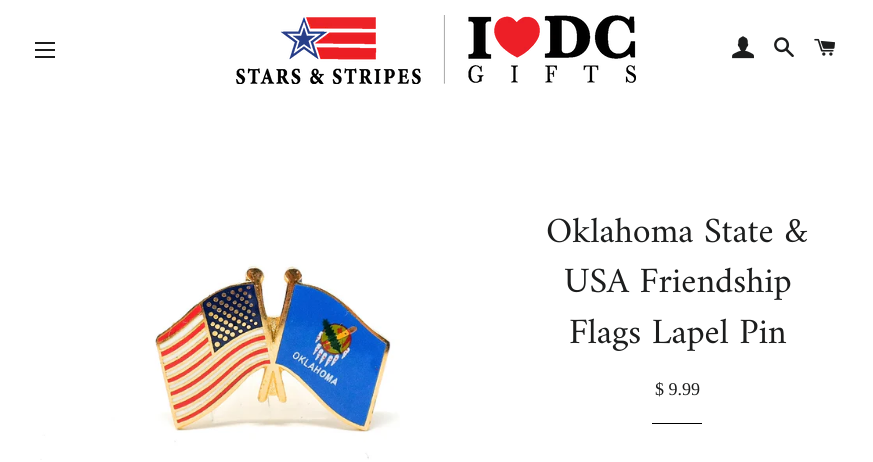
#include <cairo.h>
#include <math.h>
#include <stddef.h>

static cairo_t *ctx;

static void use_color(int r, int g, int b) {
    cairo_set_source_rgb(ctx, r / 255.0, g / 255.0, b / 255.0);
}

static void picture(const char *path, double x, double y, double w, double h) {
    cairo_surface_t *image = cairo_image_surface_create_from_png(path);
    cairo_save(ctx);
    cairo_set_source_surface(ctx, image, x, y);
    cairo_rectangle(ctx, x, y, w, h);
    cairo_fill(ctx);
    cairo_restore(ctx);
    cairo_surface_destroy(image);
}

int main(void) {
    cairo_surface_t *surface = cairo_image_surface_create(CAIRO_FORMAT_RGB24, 873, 462);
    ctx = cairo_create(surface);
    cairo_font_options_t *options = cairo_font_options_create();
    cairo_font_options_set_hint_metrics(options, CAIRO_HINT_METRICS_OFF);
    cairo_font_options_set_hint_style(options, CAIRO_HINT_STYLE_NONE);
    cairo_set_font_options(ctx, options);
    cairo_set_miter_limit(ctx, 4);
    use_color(255, 255, 255);
    cairo_paint(ctx);
    use_color(28, 29, 29);
    cairo_rectangle(ctx, 35, 42, 20, 2);
    cairo_fill(ctx);
    cairo_rectangle(ctx, 35, 49, 20, 2);
    cairo_fill(ctx);
    cairo_rectangle(ctx, 35, 56, 20, 2);
    cairo_fill(ctx);
    picture("img1.png", 236, 15, 400, 69);
    picture("img2.png", 732, 36, 22, 23);
    picture("img3.png", 774, 37, 20, 20);
    picture("img4.png", 814, 38, 21, 18);
    picture("img5.png", 40, 264, 360, 196);
    cairo_select_font_face(ctx, "Amiri", CAIRO_FONT_SLANT_NORMAL, CAIRO_FONT_WEIGHT_NORMAL);
    cairo_set_font_size(ctx, 36);
    cairo_move_to(ctx, 546, 242);
    cairo_show_text(ctx, "Oklahoma State &");
    cairo_move_to(ctx, 564, 292);
    cairo_show_text(ctx, "USA Friendship");
    cairo_move_to(ctx, 569, 343);
    cairo_show_text(ctx, "Flags Lapel Pin");
    cairo_select_font_face(ctx, "Liberation Serif", CAIRO_FONT_SLANT_NORMAL, CAIRO_FONT_WEIGHT_NORMAL);
    cairo_set_font_size(ctx, 18);
    cairo_move_to(ctx, 655, 395);
    cairo_show_text(ctx, "$ 9.99");
    use_color(0, 0, 0);
    cairo_rectangle(ctx, 652, 423, 50, 1);
    cairo_fill(ctx);
    cairo_surface_write_to_png(surface, "result.png");
    cairo_font_options_destroy(options);
    cairo_destroy(ctx);
    cairo_surface_destroy(surface);
    return 0;
}
